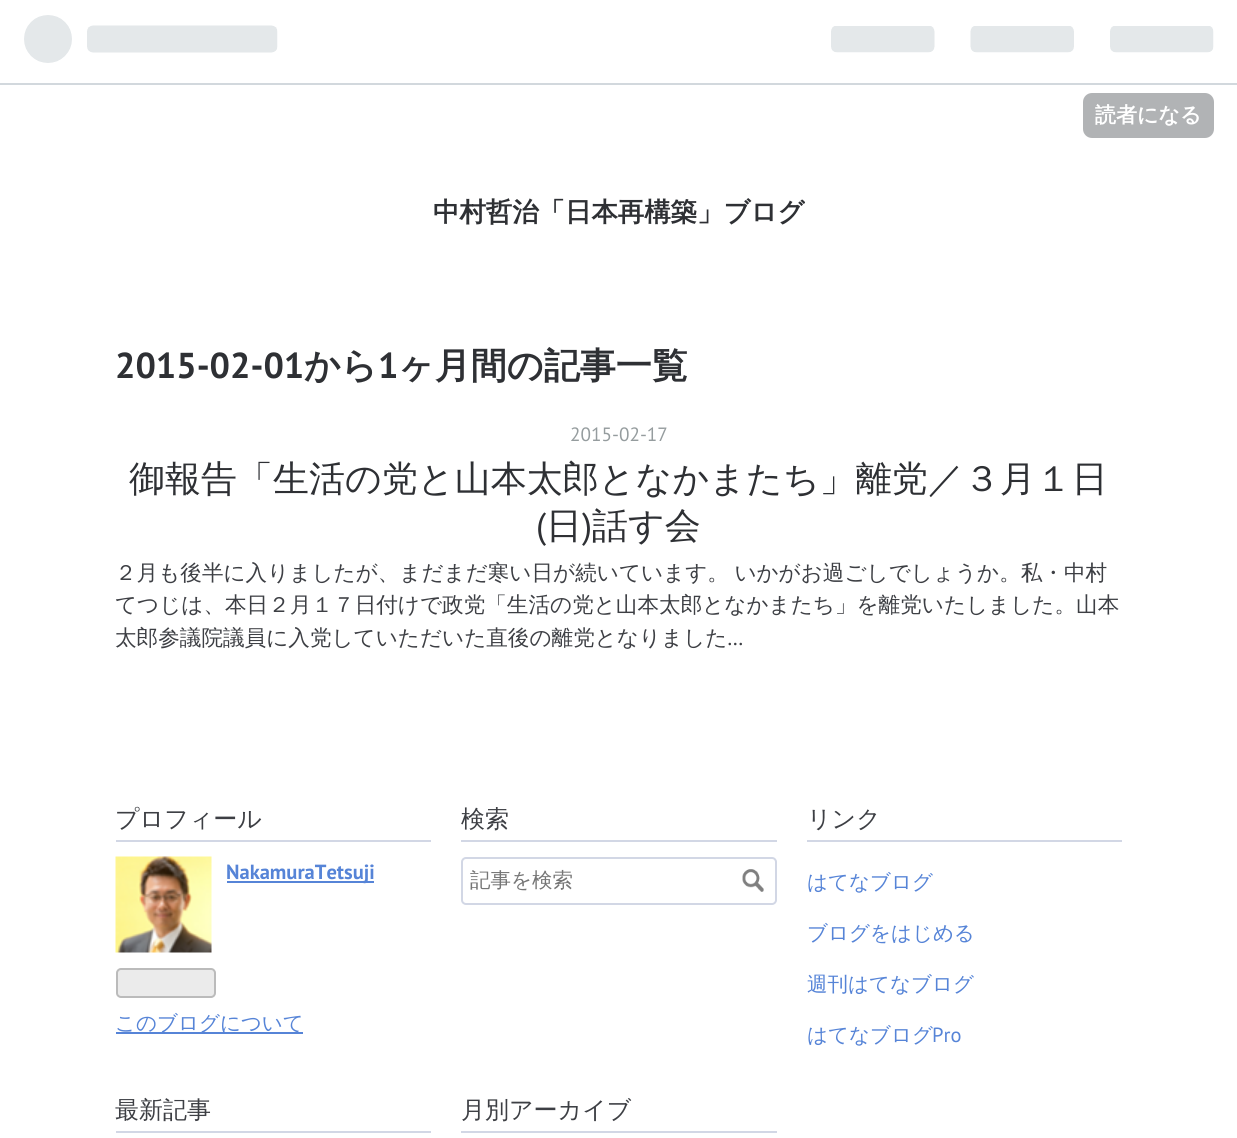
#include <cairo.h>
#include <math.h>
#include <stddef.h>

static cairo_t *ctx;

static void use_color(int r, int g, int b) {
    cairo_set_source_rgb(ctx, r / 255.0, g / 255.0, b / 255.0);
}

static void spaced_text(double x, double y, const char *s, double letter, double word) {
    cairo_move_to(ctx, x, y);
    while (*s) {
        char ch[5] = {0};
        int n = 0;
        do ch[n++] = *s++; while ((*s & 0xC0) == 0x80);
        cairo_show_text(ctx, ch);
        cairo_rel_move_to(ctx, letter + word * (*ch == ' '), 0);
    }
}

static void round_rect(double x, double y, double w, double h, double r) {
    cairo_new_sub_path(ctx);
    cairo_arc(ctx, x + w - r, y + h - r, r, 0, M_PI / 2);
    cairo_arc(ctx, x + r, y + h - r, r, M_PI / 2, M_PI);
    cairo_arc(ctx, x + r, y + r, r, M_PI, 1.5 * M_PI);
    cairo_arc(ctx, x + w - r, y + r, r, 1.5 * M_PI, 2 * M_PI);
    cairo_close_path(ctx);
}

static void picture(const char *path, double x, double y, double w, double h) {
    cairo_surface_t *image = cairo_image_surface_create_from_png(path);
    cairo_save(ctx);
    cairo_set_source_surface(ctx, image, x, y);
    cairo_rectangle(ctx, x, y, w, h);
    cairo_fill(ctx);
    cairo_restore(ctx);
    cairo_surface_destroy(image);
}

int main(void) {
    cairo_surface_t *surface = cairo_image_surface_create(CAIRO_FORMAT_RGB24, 1237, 1138);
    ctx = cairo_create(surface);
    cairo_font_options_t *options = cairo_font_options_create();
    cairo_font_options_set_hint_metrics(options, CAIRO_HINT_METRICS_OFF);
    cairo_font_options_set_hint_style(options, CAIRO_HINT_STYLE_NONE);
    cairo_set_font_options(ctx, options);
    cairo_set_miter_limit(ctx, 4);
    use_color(255, 255, 255);
    cairo_paint(ctx);
    use_color(210, 216, 221);
    cairo_rectangle(ctx, 0, 83, 1237, 2);
    cairo_fill(ctx);
    picture("img1.png", 24, 15, 254, 48);
    picture("img2.png", 831, 26, 383, 27);
    use_color(177, 179, 181);
    round_rect(1083, 93, 131, 45, 9);
    cairo_fill(ctx);
    cairo_select_font_face(ctx, "WenQuanYi Zen Hei", CAIRO_FONT_SLANT_NORMAL, CAIRO_FONT_WEIGHT_BOLD);
    cairo_set_font_size(ctx, 21);
    use_color(255, 255, 255);
    cairo_move_to(ctx, 1095, 122);
    cairo_show_text(ctx, "読者になる");
    cairo_set_font_size(ctx, 26.4);
    use_color(46, 48, 52);
    cairo_move_to(ctx, 433, 221);
    cairo_show_text(ctx, "中村哲治「日本再構築」ブログ");
    cairo_select_font_face(ctx, "PT Sans", CAIRO_FONT_SLANT_NORMAL, CAIRO_FONT_WEIGHT_BOLD);
    cairo_set_font_size(ctx, 36);
    cairo_move_to(ctx, 115, 378);
    cairo_show_text(ctx, "2015-02-01");
    cairo_select_font_face(ctx, "WenQuanYi Zen Hei", CAIRO_FONT_SLANT_NORMAL, CAIRO_FONT_WEIGHT_BOLD);
    cairo_move_to(ctx, 304, 378);
    cairo_show_text(ctx, "から");
    cairo_select_font_face(ctx, "PT Sans", CAIRO_FONT_SLANT_NORMAL, CAIRO_FONT_WEIGHT_BOLD);
    cairo_move_to(ctx, 378, 378);
    cairo_show_text(ctx, "1");
    cairo_select_font_face(ctx, "WenQuanYi Zen Hei", CAIRO_FONT_SLANT_NORMAL, CAIRO_FONT_WEIGHT_BOLD);
    cairo_move_to(ctx, 398, 378);
    cairo_show_text(ctx, "ヶ月間の記事一覧");
    cairo_select_font_face(ctx, "PT Sans", CAIRO_FONT_SLANT_NORMAL, CAIRO_FONT_WEIGHT_NORMAL);
    cairo_set_font_size(ctx, 19.25);
    use_color(149, 156, 158);
    cairo_move_to(ctx, 570, 441);
    cairo_show_text(ctx, "2015-02-17");
    cairo_select_font_face(ctx, "WenQuanYi Zen Hei Medium", CAIRO_FONT_SLANT_NORMAL, CAIRO_FONT_WEIGHT_NORMAL);
    cairo_set_font_size(ctx, 36);
    use_color(46, 48, 52);
    cairo_move_to(ctx, 129, 491);
    cairo_show_text(ctx, "御報告「生活の党と山本太郎となかまたち」離党／３月１日");
    cairo_select_font_face(ctx, "PT Sans", CAIRO_FONT_SLANT_NORMAL, CAIRO_FONT_WEIGHT_NORMAL);
    cairo_move_to(ctx, 536, 538);
    cairo_show_text(ctx, "(");
    cairo_select_font_face(ctx, "WenQuanYi Zen Hei Medium", CAIRO_FONT_SLANT_NORMAL, CAIRO_FONT_WEIGHT_NORMAL);
    cairo_move_to(ctx, 546, 538);
    cairo_show_text(ctx, "日");
    cairo_select_font_face(ctx, "PT Sans", CAIRO_FONT_SLANT_NORMAL, CAIRO_FONT_WEIGHT_NORMAL);
    cairo_move_to(ctx, 582, 538);
    cairo_show_text(ctx, ")");
    cairo_select_font_face(ctx, "WenQuanYi Zen Hei Medium", CAIRO_FONT_SLANT_NORMAL, CAIRO_FONT_WEIGHT_NORMAL);
    cairo_move_to(ctx, 592, 538);
    cairo_show_text(ctx, "話す会");
    cairo_set_font_size(ctx, 21.6);
    use_color(61, 63, 68);
    spaced_text(115, 580, "２月も後半に入りましたが、まだまだ寒い日が続いています。 いかがお過ごしでしょうか。私・中村", 0, -1);
    cairo_move_to(ctx, 115, 612);
    cairo_show_text(ctx, "てつじは、本日２月１７日付けで政党「生活の党と山本太郎となかまたち」を離党いたしました。山本");
    cairo_move_to(ctx, 115, 645);
    cairo_show_text(ctx, "太郎参議院議員に入党していただいた直後の離党となりました");
    cairo_select_font_face(ctx, "PT Sans", CAIRO_FONT_SLANT_NORMAL, CAIRO_FONT_WEIGHT_NORMAL);
    cairo_move_to(ctx, 727, 645);
    cairo_show_text(ctx, "…");
    use_color(210, 215, 229);
    cairo_rectangle(ctx, 116, 840, 315, 2);
    cairo_fill(ctx);
    cairo_select_font_face(ctx, "WenQuanYi Zen Hei Medium", CAIRO_FONT_SLANT_NORMAL, CAIRO_FONT_WEIGHT_NORMAL);
    cairo_set_font_size(ctx, 24);
    use_color(61, 63, 68);
    cairo_move_to(ctx, 115, 827);
    cairo_show_text(ctx, "プロフィール");
    picture("img3.png", 115, 856, 97, 97);
    use_color(86, 132, 215);
    cairo_rectangle(ctx, 227, 881, 147, 2);
    cairo_fill(ctx);
    cairo_select_font_face(ctx, "PT Sans", CAIRO_FONT_SLANT_NORMAL, CAIRO_FONT_WEIGHT_BOLD);
    cairo_set_font_size(ctx, 20.5);
    cairo_move_to(ctx, 226, 879);
    cairo_show_text(ctx, "NakamuraTetsuji");
    use_color(235, 235, 235);
    round_rect(117, 969, 98, 28, 4);
    cairo_fill_preserve(ctx);
    use_color(187, 187, 187);
    cairo_stroke(ctx);
    use_color(86, 132, 215);
    cairo_rectangle(ctx, 116, 1032, 187, 2);
    cairo_fill(ctx);
    cairo_select_font_face(ctx, "WenQuanYi Zen Hei Medium", CAIRO_FONT_SLANT_NORMAL, CAIRO_FONT_WEIGHT_NORMAL);
    cairo_move_to(ctx, 115, 1030);
    cairo_show_text(ctx, "このブログについて");
    use_color(210, 215, 229);
    cairo_rectangle(ctx, 461, 840, 316, 2);
    cairo_fill(ctx);
    cairo_set_font_size(ctx, 24);
    use_color(61, 63, 68);
    cairo_move_to(ctx, 461, 827);
    cairo_show_text(ctx, "検索");
    round_rect(462, 858, 314, 46, 4);
    use_color(210, 215, 229);
    cairo_stroke(ctx);
    cairo_set_font_size(ctx, 20.5);
    use_color(117, 117, 117);
    cairo_move_to(ctx, 470, 887);
    cairo_show_text(ctx, "記事を検索");
    picture("img4.png", 742, 869, 22, 23);
    use_color(210, 215, 229);
    cairo_rectangle(ctx, 807, 840, 315, 2);
    cairo_fill(ctx);
    cairo_set_font_size(ctx, 24);
    use_color(61, 63, 68);
    cairo_move_to(ctx, 807, 827);
    cairo_show_text(ctx, "リンク");
    cairo_set_font_size(ctx, 20.5);
    use_color(86, 132, 215);
    cairo_move_to(ctx, 807, 889);
    cairo_show_text(ctx, "はてなブログ");
    cairo_move_to(ctx, 807, 940);
    cairo_show_text(ctx, "ブログをはじめる");
    cairo_move_to(ctx, 807, 991);
    cairo_show_text(ctx, "週刊はてなブログ");
    cairo_move_to(ctx, 807, 1042);
    cairo_show_text(ctx, "はてなブログ");
    cairo_select_font_face(ctx, "PT Sans", CAIRO_FONT_SLANT_NORMAL, CAIRO_FONT_WEIGHT_NORMAL);
    cairo_move_to(ctx, 932, 1042);
    cairo_show_text(ctx, "Pro");
    use_color(210, 215, 229);
    cairo_rectangle(ctx, 116, 1131, 315, 2);
    cairo_fill(ctx);
    cairo_select_font_face(ctx, "WenQuanYi Zen Hei Medium", CAIRO_FONT_SLANT_NORMAL, CAIRO_FONT_WEIGHT_NORMAL);
    cairo_set_font_size(ctx, 24);
    use_color(61, 63, 68);
    cairo_move_to(ctx, 115, 1118);
    cairo_show_text(ctx, "最新記事");
    use_color(210, 215, 229);
    cairo_rectangle(ctx, 461, 1131, 316, 2);
    cairo_fill(ctx);
    use_color(61, 63, 68);
    cairo_move_to(ctx, 461, 1118);
    cairo_show_text(ctx, "月別アーカイブ");
    cairo_surface_write_to_png(surface, "result.png");
    cairo_font_options_destroy(options);
    cairo_destroy(ctx);
    cairo_surface_destroy(surface);
    return 0;
}
